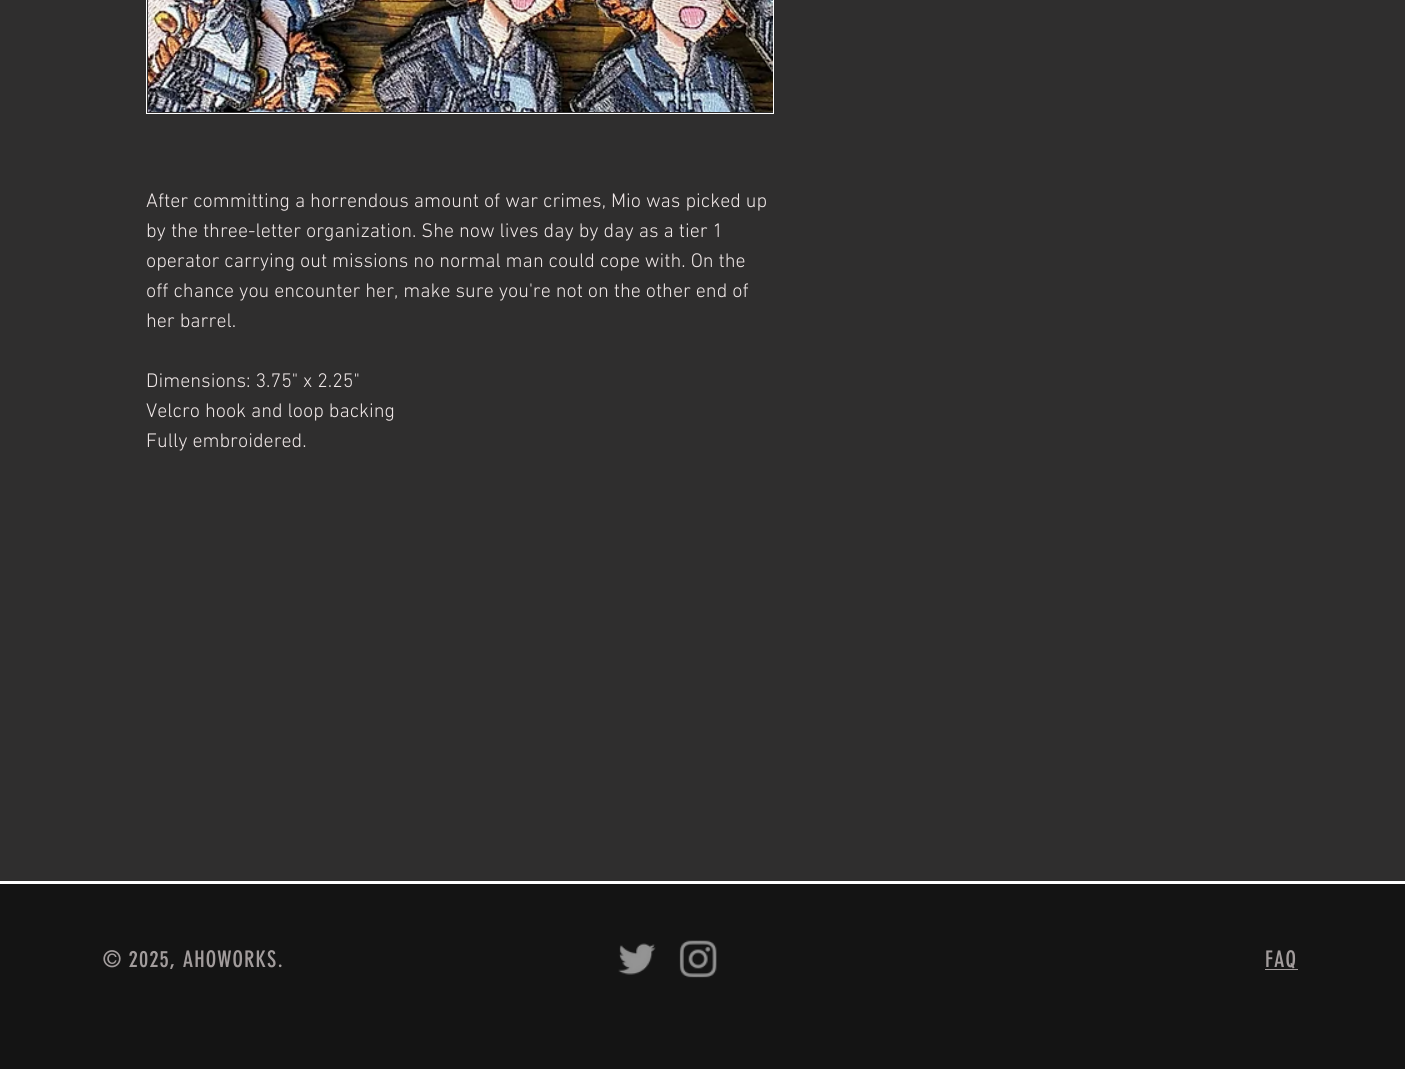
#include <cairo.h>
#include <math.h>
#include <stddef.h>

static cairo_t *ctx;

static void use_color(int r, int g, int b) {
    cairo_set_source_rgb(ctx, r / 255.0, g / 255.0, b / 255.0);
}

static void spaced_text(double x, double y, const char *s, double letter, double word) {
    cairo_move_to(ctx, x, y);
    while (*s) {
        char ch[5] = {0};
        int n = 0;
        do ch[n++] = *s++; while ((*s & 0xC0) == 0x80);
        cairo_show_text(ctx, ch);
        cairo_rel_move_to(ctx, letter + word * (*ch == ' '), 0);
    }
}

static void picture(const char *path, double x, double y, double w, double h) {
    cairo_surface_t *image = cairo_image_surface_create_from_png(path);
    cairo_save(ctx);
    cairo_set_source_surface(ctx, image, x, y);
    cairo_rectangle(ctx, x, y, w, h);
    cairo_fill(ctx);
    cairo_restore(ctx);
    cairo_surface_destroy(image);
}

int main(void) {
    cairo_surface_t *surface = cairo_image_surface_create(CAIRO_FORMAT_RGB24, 1405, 1069);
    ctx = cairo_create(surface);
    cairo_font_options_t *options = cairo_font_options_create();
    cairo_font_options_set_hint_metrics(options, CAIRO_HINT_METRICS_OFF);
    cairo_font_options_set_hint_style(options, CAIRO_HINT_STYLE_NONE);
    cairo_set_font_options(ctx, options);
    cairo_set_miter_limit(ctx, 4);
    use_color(47, 46, 46);
    cairo_paint(ctx);
    cairo_rectangle(ctx, 146.5, -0.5, 627, 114);
    use_color(255, 255, 255);
    cairo_set_line_width(ctx, 1);
    cairo_stroke(ctx);
    picture("img1.png", 148, 0, 625, 112);
    cairo_select_font_face(ctx, "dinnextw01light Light", CAIRO_FONT_SLANT_NORMAL, CAIRO_FONT_WEIGHT_NORMAL);
    cairo_set_font_size(ctx, 20);
    use_color(238, 230, 230);
    cairo_move_to(ctx, 146, 207);
    cairo_show_text(ctx, "After committing a horrendous amount of war crimes, Mio was picked up");
    cairo_move_to(ctx, 146, 237);
    cairo_show_text(ctx, "by the three-letter organization. She now lives day by day as a tier 1");
    cairo_move_to(ctx, 146, 267);
    cairo_show_text(ctx, "operator carrying out missions no normal man could cope with. On the");
    cairo_move_to(ctx, 146, 297);
    cairo_show_text(ctx, "off chance you encounter her, make sure you're not on the other end of");
    cairo_move_to(ctx, 146, 327);
    cairo_show_text(ctx, "her barrel.");
    cairo_move_to(ctx, 146, 387);
    cairo_show_text(ctx, "Dimensions: 3.75\" x 2.25\"");
    cairo_move_to(ctx, 146, 417);
    cairo_show_text(ctx, "Velcro hook and loop backing");
    cairo_move_to(ctx, 146, 447);
    cairo_show_text(ctx, "Fully embroidered.");
    use_color(20, 20, 20);
    cairo_rectangle(ctx, 0, 884, 1405, 185);
    cairo_fill(ctx);
    use_color(255, 255, 255);
    cairo_rectangle(ctx, 0, 881, 1405, 3);
    cairo_fill(ctx);
    cairo_select_font_face(ctx, "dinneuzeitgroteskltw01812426", CAIRO_FONT_SLANT_NORMAL, CAIRO_FONT_WEIGHT_NORMAL);
    cairo_set_font_size(ctx, 22.5);
    use_color(162, 156, 156);
    spaced_text(103, 967, "© 2025, AHOWORKS.", 1.1, 0);
    picture("img2.png", 618, 943, 38, 32);
    picture("img3.png", 679, 940, 38, 38);
    spaced_text(1265, 967, "FAQ", 1.1, 0);
    cairo_rectangle(ctx, 1265, 969, 33, 1);
    cairo_fill(ctx);
    cairo_surface_write_to_png(surface, "result.png");
    cairo_font_options_destroy(options);
    cairo_destroy(ctx);
    cairo_surface_destroy(surface);
    return 0;
}
